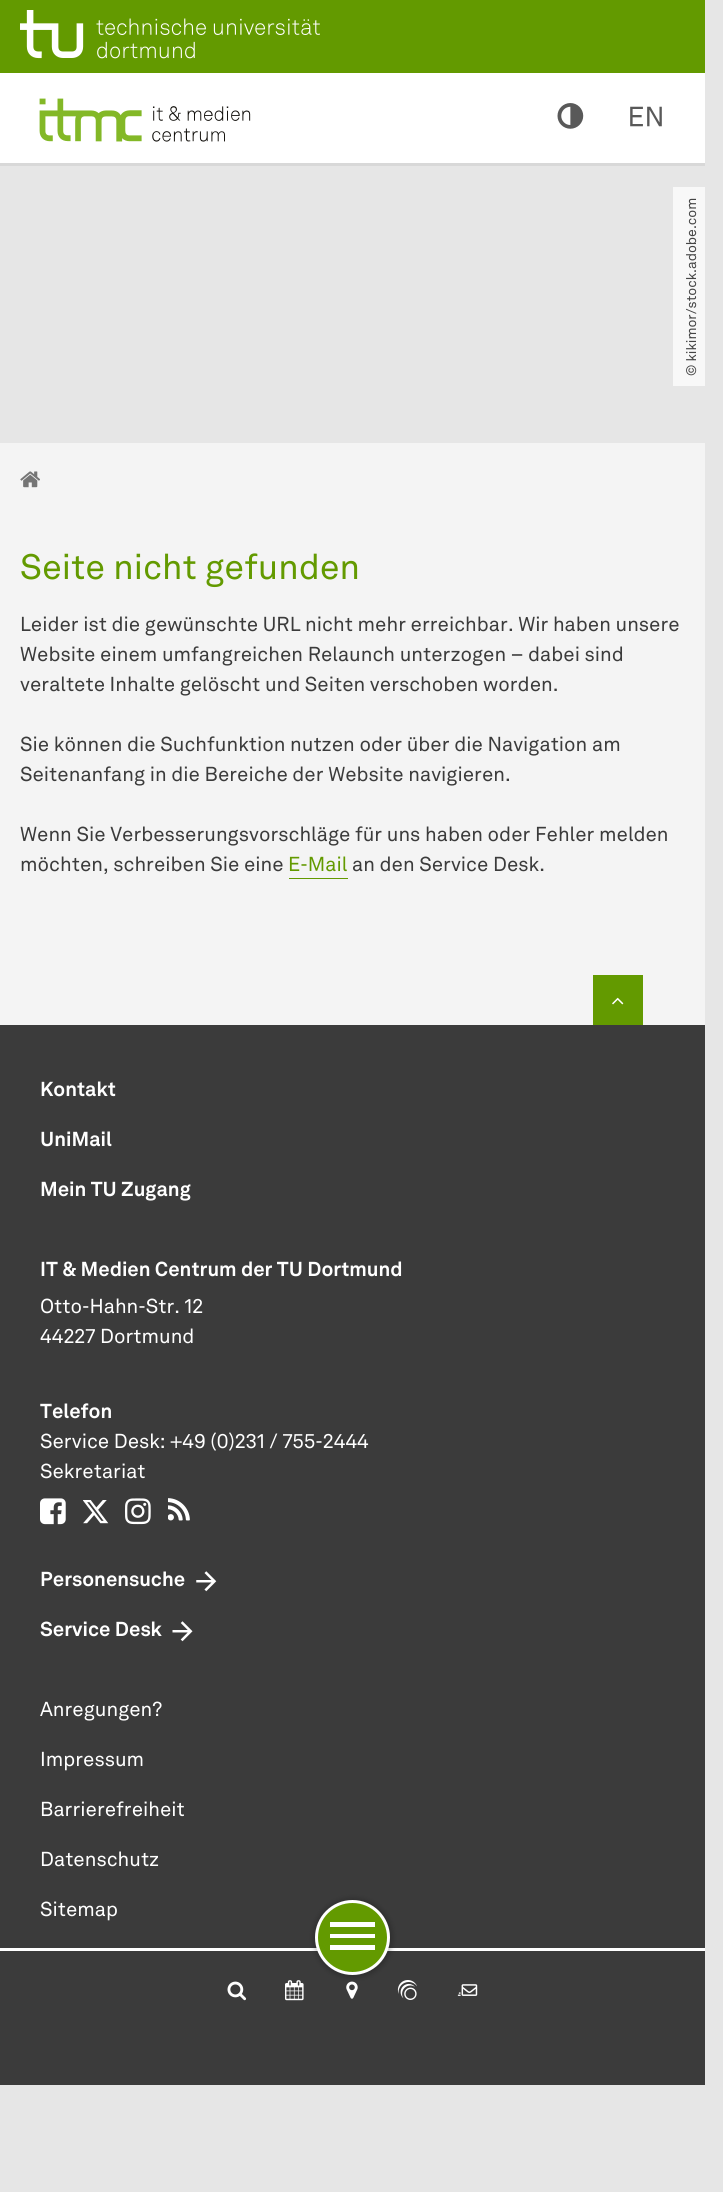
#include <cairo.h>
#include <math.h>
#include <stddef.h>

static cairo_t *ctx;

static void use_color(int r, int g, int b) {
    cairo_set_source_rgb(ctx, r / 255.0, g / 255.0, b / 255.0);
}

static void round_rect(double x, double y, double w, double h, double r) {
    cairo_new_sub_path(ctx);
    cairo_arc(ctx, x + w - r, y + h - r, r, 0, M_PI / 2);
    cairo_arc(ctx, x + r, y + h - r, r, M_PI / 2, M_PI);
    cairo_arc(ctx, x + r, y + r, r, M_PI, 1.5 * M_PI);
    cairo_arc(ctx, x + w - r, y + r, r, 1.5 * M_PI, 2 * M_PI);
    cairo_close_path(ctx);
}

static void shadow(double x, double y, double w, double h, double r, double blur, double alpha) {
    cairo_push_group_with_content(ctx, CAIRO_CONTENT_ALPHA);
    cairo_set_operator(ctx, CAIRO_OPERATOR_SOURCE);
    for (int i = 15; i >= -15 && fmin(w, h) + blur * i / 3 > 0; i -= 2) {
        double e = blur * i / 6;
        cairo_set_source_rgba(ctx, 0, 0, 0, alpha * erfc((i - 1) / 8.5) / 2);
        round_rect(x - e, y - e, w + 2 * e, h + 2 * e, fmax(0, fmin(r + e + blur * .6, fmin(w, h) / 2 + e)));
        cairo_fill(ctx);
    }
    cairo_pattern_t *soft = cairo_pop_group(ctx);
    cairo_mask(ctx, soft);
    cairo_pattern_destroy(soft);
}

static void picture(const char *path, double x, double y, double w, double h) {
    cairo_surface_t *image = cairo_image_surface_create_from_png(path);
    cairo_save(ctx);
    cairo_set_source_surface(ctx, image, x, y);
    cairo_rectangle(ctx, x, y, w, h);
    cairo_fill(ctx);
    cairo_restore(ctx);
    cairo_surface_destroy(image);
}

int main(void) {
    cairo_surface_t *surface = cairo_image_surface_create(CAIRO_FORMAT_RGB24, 723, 2192);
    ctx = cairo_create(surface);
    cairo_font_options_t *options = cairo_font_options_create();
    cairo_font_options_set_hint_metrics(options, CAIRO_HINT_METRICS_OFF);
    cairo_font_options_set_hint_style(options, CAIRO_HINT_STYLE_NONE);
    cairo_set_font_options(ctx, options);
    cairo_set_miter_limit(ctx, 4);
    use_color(230, 230, 230);
    cairo_paint(ctx);
    use_color(99, 154, 0);
    cairo_rectangle(ctx, 0, 0, 705, 73);
    cairo_fill(ctx);
    picture("img1.png", 20, 10, 300, 49);
    use_color(255, 255, 255);
    cairo_rectangle(ctx, 0, 73, 705, 90);
    cairo_fill(ctx);
    use_color(216, 216, 216);
    cairo_rectangle(ctx, 0, 163, 705, 3);
    cairo_fill(ctx);
    picture("img2.png", 39, 98, 212, 44);
    picture("img3.png", 557, 103, 27, 26);
    picture("img4.png", 630, 106, 32, 21);
    use_color(248, 248, 248);
    cairo_rectangle(ctx, 673, 187, 32, 199);
    cairo_fill(ctx);
    cairo_select_font_face(ctx, "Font", CAIRO_FONT_SLANT_NORMAL, CAIRO_FONT_WEIGHT_NORMAL);
    cairo_set_font_size(ctx, 13.75);
    use_color(69, 69, 69);
    cairo_save(ctx);
    cairo_translate(ctx, 696, 376);
    cairo_rotate(ctx, -90 * M_PI / 180);
    cairo_move_to(ctx, 0, 0);
    cairo_show_text(ctx, "© kikimor/stock.adobe.com");
    cairo_restore(ctx);
    use_color(244, 244, 244);
    cairo_rectangle(ctx, 0, 443, 705, 582);
    cairo_fill(ctx);
    picture("img5.png", 20, 471, 20, 17);
    cairo_set_font_size(ctx, 35);
    use_color(99, 154, 0);
    cairo_move_to(ctx, 20, 579);
    cairo_show_text(ctx, "Seite nicht gefunden");
    cairo_set_font_size(ctx, 20);
    use_color(59, 59, 59);
    cairo_move_to(ctx, 20, 631);
    cairo_show_text(ctx, "Leider ist die gewünschte URL nicht mehr erreichbar. Wir haben unsere");
    cairo_move_to(ctx, 20, 661);
    cairo_show_text(ctx, "Website einem umfangreichen Relaunch unterzogen – dabei sind");
    cairo_move_to(ctx, 20, 691);
    cairo_show_text(ctx, "veraltete Inhalte gelöscht und Seiten verschoben worden.");
    cairo_move_to(ctx, 20, 751);
    cairo_show_text(ctx, "Sie können die Suchfunktion nutzen oder über die Navigation am");
    cairo_move_to(ctx, 20, 781);
    cairo_show_text(ctx, "Seitenanfang in die Bereiche der Website navigieren.");
    cairo_move_to(ctx, 20, 841);
    cairo_show_text(ctx, "Wenn Sie Verbesserungsvorschläge für uns haben oder Fehler melden");
    cairo_move_to(ctx, 20, 871);
    cairo_show_text(ctx, "möchten, schreiben Sie eine");
    use_color(99, 154, 0);
    cairo_move_to(ctx, 288, 871);
    cairo_show_text(ctx, "E-Mail");
    cairo_rectangle(ctx, 289, 878, 59, 1);
    cairo_fill(ctx);
    use_color(59, 59, 59);
    cairo_move_to(ctx, 352, 871);
    cairo_show_text(ctx, "an den Service Desk.");
    use_color(99, 154, 0);
    cairo_rectangle(ctx, 593, 975, 50, 50);
    cairo_fill(ctx);
    picture("img6.png", 612, 997, 12, 8);
    use_color(59, 59, 59);
    cairo_rectangle(ctx, 0, 1025, 705, 1060);
    cairo_fill(ctx);
    cairo_select_font_face(ctx, "Font", CAIRO_FONT_SLANT_NORMAL, CAIRO_FONT_WEIGHT_BOLD);
    use_color(255, 255, 255);
    cairo_move_to(ctx, 40, 1096);
    cairo_show_text(ctx, "Kontakt");
    cairo_move_to(ctx, 40, 1146);
    cairo_show_text(ctx, "UniMail");
    cairo_move_to(ctx, 40, 1196);
    cairo_show_text(ctx, "Mein TU Zugang");
    cairo_move_to(ctx, 40, 1276);
    cairo_show_text(ctx, "IT & Medien Centrum der TU Dortmund");
    cairo_select_font_face(ctx, "Font", CAIRO_FONT_SLANT_NORMAL, CAIRO_FONT_WEIGHT_NORMAL);
    cairo_move_to(ctx, 40, 1313);
    cairo_show_text(ctx, "Otto-Hahn-Str. 12");
    cairo_move_to(ctx, 40, 1343);
    cairo_show_text(ctx, "44227 Dortmund");
    cairo_select_font_face(ctx, "Font", CAIRO_FONT_SLANT_NORMAL, CAIRO_FONT_WEIGHT_BOLD);
    cairo_move_to(ctx, 40, 1418);
    cairo_show_text(ctx, "Telefon");
    cairo_select_font_face(ctx, "Font", CAIRO_FONT_SLANT_NORMAL, CAIRO_FONT_WEIGHT_NORMAL);
    cairo_move_to(ctx, 40, 1448);
    cairo_show_text(ctx, "Service Desk: +49 (0)231 / 755-2444");
    cairo_move_to(ctx, 40, 1478);
    cairo_show_text(ctx, "Sekretariat");
    picture("img7.png", 40, 1498, 26, 27);
    picture("img8.png", 83, 1500, 26, 24);
    picture("img9.png", 125, 1498, 26, 27);
    picture("img10.png", 168, 1498, 22, 23);
    cairo_select_font_face(ctx, "Font", CAIRO_FONT_SLANT_NORMAL, CAIRO_FONT_WEIGHT_BOLD);
    cairo_move_to(ctx, 40, 1586);
    cairo_show_text(ctx, "Personensuche");
    picture("img11.png", 196, 1571, 21, 21);
    cairo_move_to(ctx, 40, 1636);
    cairo_show_text(ctx, "Service Desk");
    picture("img12.png", 172, 1621, 21, 21);
    cairo_select_font_face(ctx, "Font", CAIRO_FONT_SLANT_NORMAL, CAIRO_FONT_WEIGHT_NORMAL);
    cairo_move_to(ctx, 40, 1716);
    cairo_show_text(ctx, "Anregungen?");
    cairo_move_to(ctx, 40, 1766);
    cairo_show_text(ctx, "Impressum");
    cairo_move_to(ctx, 40, 1816);
    cairo_show_text(ctx, "Barrierefreiheit");
    cairo_move_to(ctx, 40, 1866);
    cairo_show_text(ctx, "Datenschutz");
    cairo_move_to(ctx, 40, 1916);
    cairo_show_text(ctx, "Sitemap");
    cairo_rectangle(ctx, 0, 1948, 705, 3);
    cairo_fill(ctx);
    picture("img15.png", 346, 1981, 12, 18);
    picture("img16.png", 397, 1980, 20, 20);
    use_color(0, 0, 0);
    shadow(313, 1898, 80, 80, 40, 2.5, 0.2);
    use_color(99, 154, 0);
    cairo_arc(ctx, 352.5, 1937.5, 36, 0, 2 * M_PI);
    cairo_fill_preserve(ctx);
    use_color(255, 255, 255);
    cairo_set_line_width(ctx, 3);
    cairo_stroke(ctx);
    cairo_new_path(ctx);
    cairo_move_to(ctx, 330, 1922);
    cairo_line_to(ctx, 375, 1922);
    cairo_line_to(ctx, 375, 1927);
    cairo_line_to(ctx, 330, 1927);
    cairo_close_path(ctx);
    cairo_move_to(ctx, 330, 1934);
    cairo_line_to(ctx, 375, 1934);
    cairo_line_to(ctx, 375, 1938);
    cairo_line_to(ctx, 330, 1938);
    cairo_close_path(ctx);
    cairo_move_to(ctx, 330, 1945);
    cairo_line_to(ctx, 375, 1945);
    cairo_line_to(ctx, 375, 1950);
    cairo_line_to(ctx, 330, 1950);
    cairo_close_path(ctx);
    cairo_fill(ctx);
    picture("img13.png", 227, 1981, 20, 20);
    picture("img14.png", 285, 1980, 19, 21);
    picture("img17.png", 457, 1984, 21, 12);
    cairo_surface_write_to_png(surface, "result.png");
    cairo_font_options_destroy(options);
    cairo_destroy(ctx);
    cairo_surface_destroy(surface);
    return 0;
}
